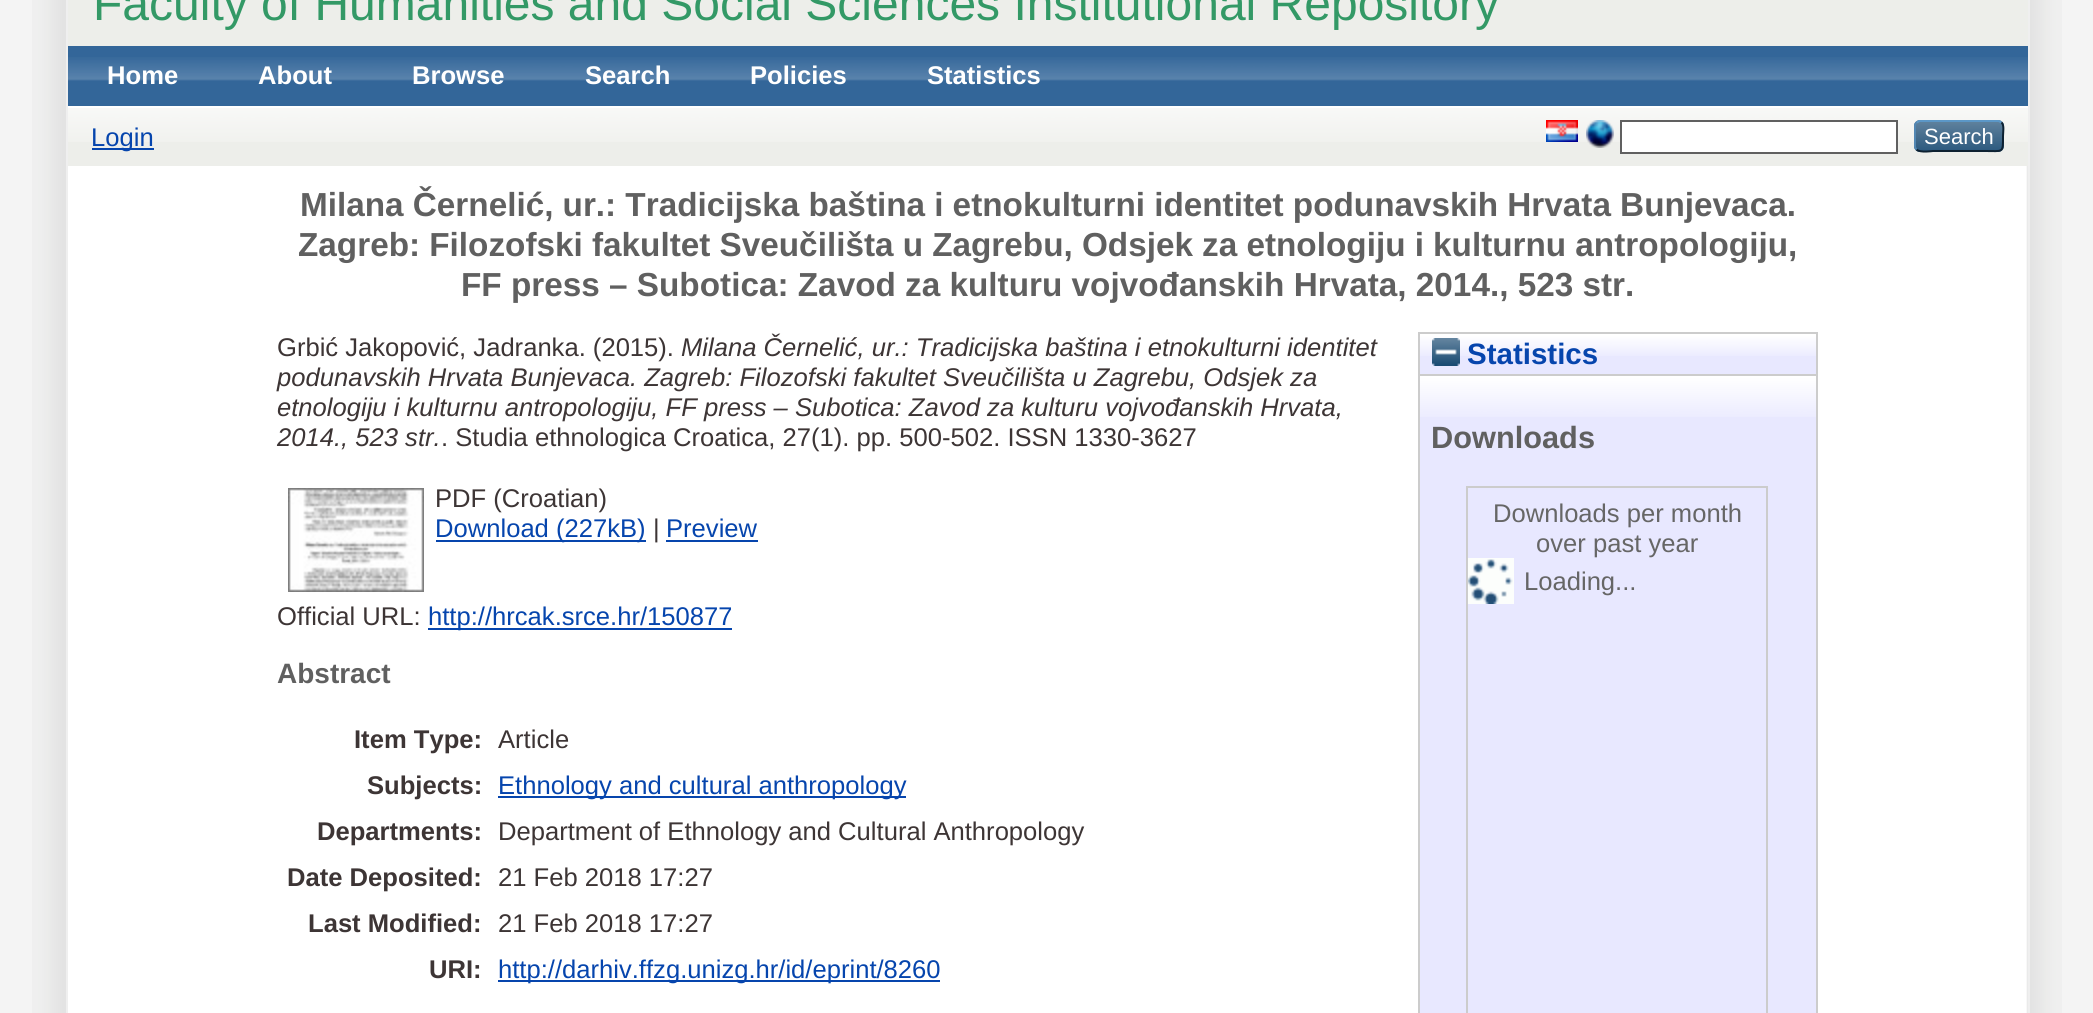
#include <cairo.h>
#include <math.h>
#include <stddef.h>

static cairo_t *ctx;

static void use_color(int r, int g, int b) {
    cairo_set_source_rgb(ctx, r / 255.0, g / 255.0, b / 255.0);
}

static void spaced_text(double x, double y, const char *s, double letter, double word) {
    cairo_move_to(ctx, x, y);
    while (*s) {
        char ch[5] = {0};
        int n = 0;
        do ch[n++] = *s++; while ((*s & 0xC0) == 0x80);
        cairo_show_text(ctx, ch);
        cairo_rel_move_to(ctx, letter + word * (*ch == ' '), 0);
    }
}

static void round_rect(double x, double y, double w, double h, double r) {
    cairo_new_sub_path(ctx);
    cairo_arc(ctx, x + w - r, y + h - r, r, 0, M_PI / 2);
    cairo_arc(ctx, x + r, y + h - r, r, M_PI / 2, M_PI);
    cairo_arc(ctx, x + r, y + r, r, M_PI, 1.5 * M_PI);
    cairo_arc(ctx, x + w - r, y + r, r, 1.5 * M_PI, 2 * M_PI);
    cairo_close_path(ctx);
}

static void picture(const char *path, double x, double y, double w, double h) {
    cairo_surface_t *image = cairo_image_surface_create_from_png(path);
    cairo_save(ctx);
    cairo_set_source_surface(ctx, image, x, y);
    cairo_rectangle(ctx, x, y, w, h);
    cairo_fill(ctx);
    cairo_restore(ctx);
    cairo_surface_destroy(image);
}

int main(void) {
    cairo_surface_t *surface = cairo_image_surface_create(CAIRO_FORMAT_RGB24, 2093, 1013);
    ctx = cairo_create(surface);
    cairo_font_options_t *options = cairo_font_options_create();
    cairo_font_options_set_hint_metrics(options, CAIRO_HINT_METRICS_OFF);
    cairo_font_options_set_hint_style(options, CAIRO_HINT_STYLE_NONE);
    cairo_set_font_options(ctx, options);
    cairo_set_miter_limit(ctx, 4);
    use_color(244, 244, 244);
    cairo_paint(ctx);
    picture("img1.png", 32, 0, 2030, 1013);
    use_color(239, 239, 239);
    cairo_rectangle(ctx, 2028, 0, 2, 1013);
    cairo_fill(ctx);
    cairo_rectangle(ctx, 66, 0, 2, 1013);
    cairo_fill(ctx);
    use_color(237, 238, 234);
    cairo_rectangle(ctx, 68, 0, 1960, 46);
    cairo_fill(ctx);
    cairo_select_font_face(ctx, "Liberation Sans", CAIRO_FONT_SLANT_NORMAL, CAIRO_FONT_WEIGHT_NORMAL);
    cairo_set_font_size(ctx, 48);
    use_color(51, 153, 102);
    cairo_move_to(ctx, 93, 20);
    cairo_show_text(ctx, "Faculty of Humanities and Social Sciences Institutional Repository");
    use_color(51, 102, 153);
    cairo_rectangle(ctx, 68, 46, 1960, 60);
    cairo_fill(ctx);
    picture("img2.png", 68, 57, 1960, 24);
    use_color(255, 255, 255);
    cairo_rectangle(ctx, 2026, 106, 2, 2);
    cairo_fill(ctx);
    cairo_select_font_face(ctx, "Liberation Sans", CAIRO_FONT_SLANT_NORMAL, CAIRO_FONT_WEIGHT_BOLD);
    cairo_set_font_size(ctx, 25.6);
    cairo_move_to(ctx, 107, 84);
    cairo_show_text(ctx, "Home");
    cairo_move_to(ctx, 258, 84);
    cairo_show_text(ctx, "About");
    cairo_move_to(ctx, 412, 84);
    cairo_show_text(ctx, "Browse");
    cairo_move_to(ctx, 585, 84);
    cairo_show_text(ctx, "Search");
    cairo_move_to(ctx, 750, 84);
    cairo_show_text(ctx, "Policies");
    cairo_move_to(ctx, 927, 84);
    cairo_show_text(ctx, "Statistics");
    use_color(237, 238, 234);
    cairo_rectangle(ctx, 68, 108, 1960, 58);
    cairo_fill(ctx);
    picture("img3.png", 68, 108, 1960, 34);
    use_color(6, 69, 173);
    cairo_rectangle(ctx, 92, 148, 62, 2);
    cairo_fill(ctx);
    cairo_select_font_face(ctx, "Liberation Sans", CAIRO_FONT_SLANT_NORMAL, CAIRO_FONT_WEIGHT_NORMAL);
    cairo_move_to(ctx, 91, 146);
    cairo_show_text(ctx, "Login");
    picture("img4.png", 1546, 120, 32, 22);
    picture("img5.png", 1586, 120, 28, 28);
    use_color(255, 255, 255);
    cairo_rectangle(ctx, 1621, 121, 276, 32);
    cairo_fill_preserve(ctx);
    use_color(96, 96, 96);
    cairo_stroke(ctx);
    use_color(31, 79, 118);
    round_rect(1914, 120, 90, 32, 6);
    cairo_fill(ctx);
    picture("img6.png", 1914, 120, 90, 32);
    cairo_new_path(ctx);
    cairo_move_to(ctx, 1916.5, 122.5);
    cairo_line_to(ctx, 1919.5, 121);
    cairo_line_to(ctx, 1998.5, 121);
    cairo_line_to(ctx, 2001.5, 122.5);
    use_color(91, 151, 199);
    cairo_stroke(ctx);
    cairo_new_path(ctx);
    cairo_move_to(ctx, 2001.5, 122.5);
    cairo_curve_to(ctx, 2004.5, 125, 2003, 132.5, 2003, 136);
    cairo_curve_to(ctx, 2003, 153.5, 2003.5, 151, 1985, 151);
    cairo_line_to(ctx, 1933, 151);
    cairo_curve_to(ctx, 1932.5, 151, 1920, 153, 1916.5, 149.5);
    use_color(13, 33, 49);
    cairo_stroke(ctx);
    cairo_new_path(ctx);
    cairo_move_to(ctx, 1916.5, 149.5);
    cairo_curve_to(ctx, 1915.5, 148.5, 1915, 147.5, 1915, 146);
    cairo_line_to(ctx, 1915, 126);
    cairo_curve_to(ctx, 1915, 124.5, 1915.5, 123.5, 1916.5, 122.5);
    use_color(82, 135, 179);
    cairo_stroke(ctx);
    cairo_set_font_size(ctx, 22);
    use_color(255, 255, 255);
    cairo_move_to(ctx, 1924, 144);
    cairo_show_text(ctx, "Search");
    cairo_select_font_face(ctx, "Liberation Sans", CAIRO_FONT_SLANT_NORMAL, CAIRO_FONT_WEIGHT_BOLD);
    cairo_set_font_size(ctx, 33.3);
    use_color(96, 96, 96);
    spaced_text(300, 216, "Milana Černelić, ur.: Tradicijska baština i etnokulturni identitet podunavskih Hrvata Bunjevaca.", 0, -0.1);
    spaced_text(298, 256, "Zagreb: Filozofski fakultet Sveučilišta u Zagrebu, Odsjek za etnologiju i kulturnu antropologiju,", 0, -0.1);
    cairo_move_to(ctx, 461, 296);
    cairo_show_text(ctx, "FF press – Subotica: Zavod za kulturu vojvođanskih Hrvata, 2014., 523 str.");
    cairo_select_font_face(ctx, "Liberation Sans", CAIRO_FONT_SLANT_NORMAL, CAIRO_FONT_WEIGHT_NORMAL);
    cairo_set_font_size(ctx, 25.6);
    use_color(61, 53, 53);
    cairo_move_to(ctx, 277, 356);
    cairo_show_text(ctx, "Grbić Jakopović, Jadranka. (2015).");
    cairo_select_font_face(ctx, "Liberation Sans", CAIRO_FONT_SLANT_ITALIC, CAIRO_FONT_WEIGHT_NORMAL);
    cairo_move_to(ctx, 681, 356);
    cairo_show_text(ctx, "Milana Černelić, ur.: Tradicijska baština i etnokulturni identitet");
    cairo_move_to(ctx, 277, 386);
    cairo_show_text(ctx, "podunavskih Hrvata Bunjevaca. Zagreb: Filozofski fakultet Sveučilišta u Zagrebu, Odsjek za");
    cairo_move_to(ctx, 277, 416);
    cairo_show_text(ctx, "etnologiju i kulturnu antropologiju, FF press – Subotica: Zavod za kulturu vojvođanskih Hrvata,");
    cairo_move_to(ctx, 277, 446);
    cairo_show_text(ctx, "2014., 523 str.");
    cairo_select_font_face(ctx, "Liberation Sans", CAIRO_FONT_SLANT_NORMAL, CAIRO_FONT_WEIGHT_NORMAL);
    cairo_move_to(ctx, 441, 446);
    cairo_show_text(ctx, ". Studia ethnologica Croatica, 27(1). pp. 500-502. ISSN 1330-3627");
    picture("img7.png", 288, 488, 136, 104);
    cairo_move_to(ctx, 435, 507);
    cairo_show_text(ctx, "PDF (Croatian)");
    use_color(6, 69, 173);
    cairo_rectangle(ctx, 436, 540, 210, 2);
    cairo_fill(ctx);
    cairo_move_to(ctx, 435, 537);
    cairo_show_text(ctx, "Download (227kB)");
    use_color(61, 53, 53);
    cairo_move_to(ctx, 653, 537);
    cairo_show_text(ctx, "|");
    use_color(6, 69, 173);
    cairo_move_to(ctx, 666, 537);
    cairo_show_text(ctx, "Preview");
    cairo_rectangle(ctx, 666, 540, 92, 2);
    cairo_fill(ctx);
    use_color(61, 53, 53);
    cairo_move_to(ctx, 277, 625);
    cairo_show_text(ctx, "Official URL:");
    use_color(6, 69, 173);
    cairo_rectangle(ctx, 428, 628, 304, 2);
    cairo_fill(ctx);
    cairo_move_to(ctx, 428, 625);
    cairo_show_text(ctx, "http://hrcak.srce.hr/150877");
    cairo_select_font_face(ctx, "Liberation Sans", CAIRO_FONT_SLANT_NORMAL, CAIRO_FONT_WEIGHT_BOLD);
    cairo_set_font_size(ctx, 28);
    use_color(96, 96, 96);
    cairo_move_to(ctx, 277, 683);
    cairo_show_text(ctx, "Abstract");
    cairo_set_font_size(ctx, 25.6);
    use_color(61, 53, 53);
    cairo_move_to(ctx, 354, 748);
    cairo_show_text(ctx, "Item Type:");
    cairo_select_font_face(ctx, "Liberation Sans", CAIRO_FONT_SLANT_NORMAL, CAIRO_FONT_WEIGHT_NORMAL);
    cairo_move_to(ctx, 498, 748);
    cairo_show_text(ctx, "Article");
    cairo_select_font_face(ctx, "Liberation Sans", CAIRO_FONT_SLANT_NORMAL, CAIRO_FONT_WEIGHT_BOLD);
    cairo_move_to(ctx, 367, 794);
    cairo_show_text(ctx, "Subjects:");
    use_color(6, 69, 173);
    cairo_rectangle(ctx, 498, 796, 408, 2);
    cairo_fill(ctx);
    cairo_select_font_face(ctx, "Liberation Sans", CAIRO_FONT_SLANT_NORMAL, CAIRO_FONT_WEIGHT_NORMAL);
    cairo_move_to(ctx, 498, 794);
    cairo_show_text(ctx, "Ethnology and cultural anthropology");
    cairo_select_font_face(ctx, "Liberation Sans", CAIRO_FONT_SLANT_NORMAL, CAIRO_FONT_WEIGHT_BOLD);
    use_color(61, 53, 53);
    cairo_move_to(ctx, 317, 840);
    cairo_show_text(ctx, "Departments:");
    cairo_select_font_face(ctx, "Liberation Sans", CAIRO_FONT_SLANT_NORMAL, CAIRO_FONT_WEIGHT_NORMAL);
    cairo_move_to(ctx, 498, 840);
    cairo_show_text(ctx, "Department of Ethnology and Cultural Anthropology");
    cairo_select_font_face(ctx, "Liberation Sans", CAIRO_FONT_SLANT_NORMAL, CAIRO_FONT_WEIGHT_BOLD);
    cairo_move_to(ctx, 287, 886);
    cairo_show_text(ctx, "Date Deposited:");
    cairo_select_font_face(ctx, "Liberation Sans", CAIRO_FONT_SLANT_NORMAL, CAIRO_FONT_WEIGHT_NORMAL);
    cairo_move_to(ctx, 498, 886);
    cairo_show_text(ctx, "21 Feb 2018 17:27");
    cairo_select_font_face(ctx, "Liberation Sans", CAIRO_FONT_SLANT_NORMAL, CAIRO_FONT_WEIGHT_BOLD);
    cairo_move_to(ctx, 308, 932);
    cairo_show_text(ctx, "Last Modified:");
    cairo_select_font_face(ctx, "Liberation Sans", CAIRO_FONT_SLANT_NORMAL, CAIRO_FONT_WEIGHT_NORMAL);
    cairo_move_to(ctx, 498, 932);
    cairo_show_text(ctx, "21 Feb 2018 17:27");
    cairo_select_font_face(ctx, "Liberation Sans", CAIRO_FONT_SLANT_NORMAL, CAIRO_FONT_WEIGHT_BOLD);
    cairo_move_to(ctx, 429, 978);
    cairo_show_text(ctx, "URI:");
    use_color(6, 69, 173);
    cairo_rectangle(ctx, 498, 980, 442, 2);
    cairo_fill(ctx);
    cairo_select_font_face(ctx, "Liberation Sans", CAIRO_FONT_SLANT_NORMAL, CAIRO_FONT_WEIGHT_NORMAL);
    cairo_move_to(ctx, 498, 978);
    cairo_show_text(ctx, "http://darhiv.ffzg.unizg.hr/id/eprint/8260");
    use_color(232, 232, 255);
    cairo_rectangle(ctx, 1420, 335, 396, 39);
    cairo_fill(ctx);
    picture("img8.png", 1420, 334, 396, 22);
    cairo_rectangle(ctx, 1419, 333, 398, 42);
    use_color(204, 204, 204);
    cairo_stroke(ctx);
    picture("img9.png", 1432, 338, 28, 28);
    cairo_select_font_face(ctx, "Liberation Sans", CAIRO_FONT_SLANT_NORMAL, CAIRO_FONT_WEIGHT_BOLD);
    cairo_set_font_size(ctx, 29.5);
    use_color(6, 69, 173);
    cairo_move_to(ctx, 1467, 364);
    cairo_show_text(ctx, "Statistics");
    use_color(232, 232, 255);
    cairo_rectangle(ctx, 1420, 377, 396, 636);
    cairo_fill(ctx);
    picture("img10.png", 1420, 376, 396, 41);
    use_color(204, 204, 204);
    cairo_rectangle(ctx, 1816, 376, 2, 637);
    cairo_fill(ctx);
    cairo_rectangle(ctx, 1418, 376, 2, 637);
    cairo_fill(ctx);
    cairo_set_font_size(ctx, 30.75);
    use_color(96, 96, 96);
    cairo_move_to(ctx, 1431, 448);
    cairo_show_text(ctx, "Downloads");
    cairo_rectangle(ctx, 1467, 487, 300, 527);
    use_color(204, 204, 204);
    cairo_stroke(ctx);
    cairo_select_font_face(ctx, "Liberation Sans", CAIRO_FONT_SLANT_NORMAL, CAIRO_FONT_WEIGHT_NORMAL);
    cairo_set_font_size(ctx, 25.6);
    use_color(102, 102, 102);
    cairo_move_to(ctx, 1493, 522);
    cairo_show_text(ctx, "Downloads per month");
    cairo_move_to(ctx, 1536, 552);
    cairo_show_text(ctx, "over past year");
    picture("img11.png", 1468, 558, 46, 46);
    cairo_move_to(ctx, 1524, 590);
    cairo_show_text(ctx, "Loading...");
    cairo_surface_write_to_png(surface, "result.png");
    cairo_font_options_destroy(options);
    cairo_destroy(ctx);
    cairo_surface_destroy(surface);
    return 0;
}
